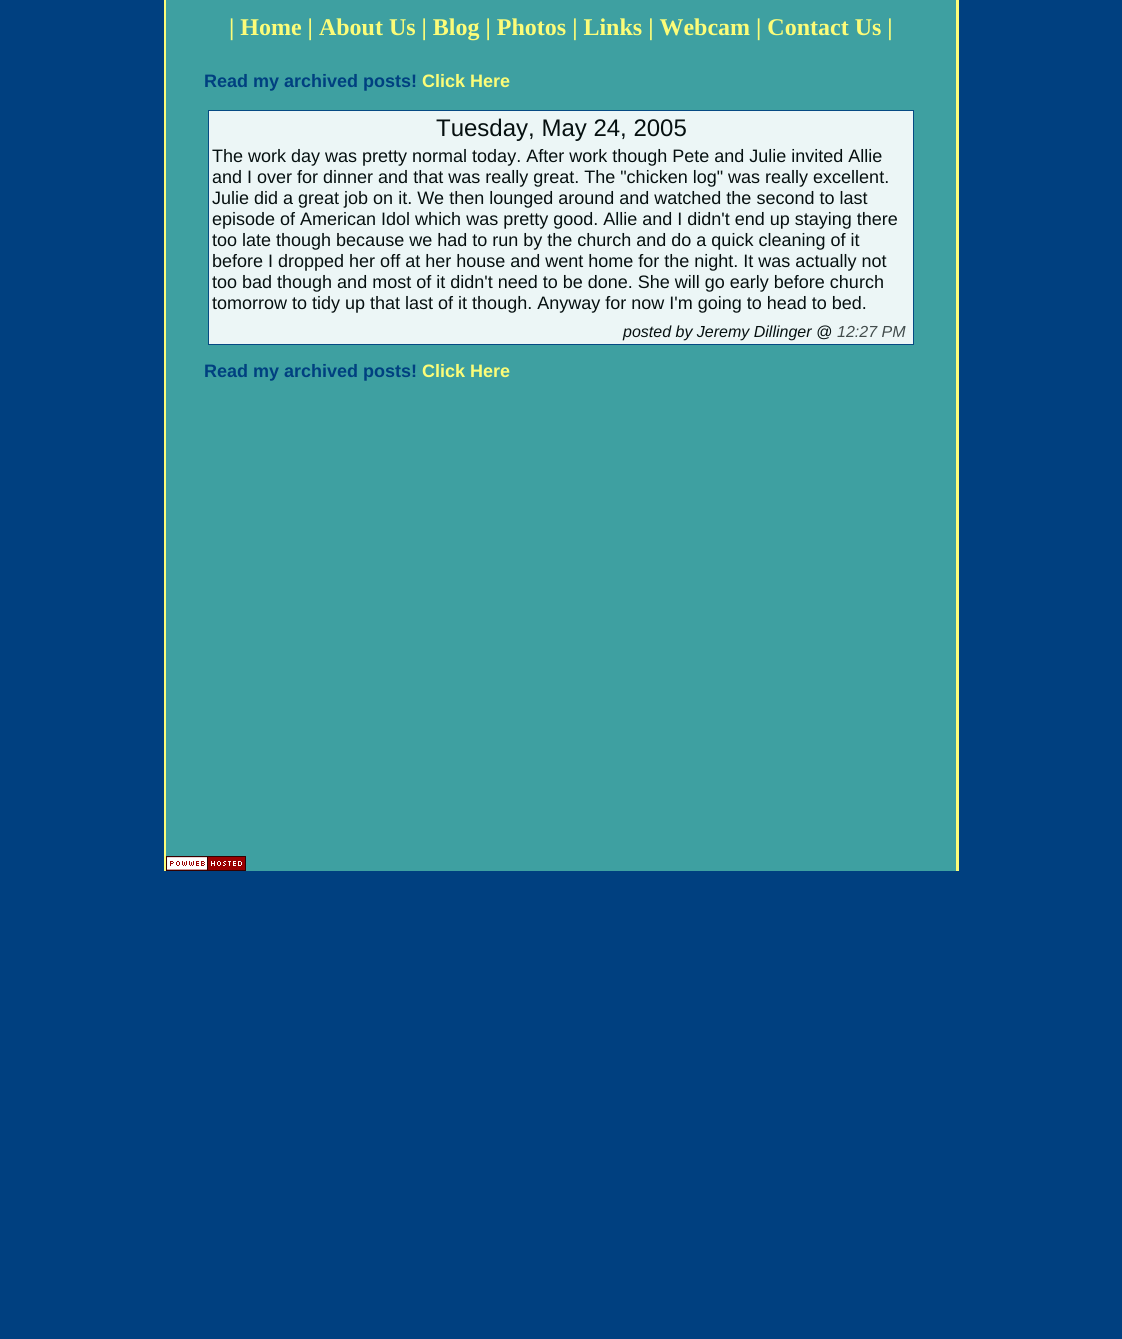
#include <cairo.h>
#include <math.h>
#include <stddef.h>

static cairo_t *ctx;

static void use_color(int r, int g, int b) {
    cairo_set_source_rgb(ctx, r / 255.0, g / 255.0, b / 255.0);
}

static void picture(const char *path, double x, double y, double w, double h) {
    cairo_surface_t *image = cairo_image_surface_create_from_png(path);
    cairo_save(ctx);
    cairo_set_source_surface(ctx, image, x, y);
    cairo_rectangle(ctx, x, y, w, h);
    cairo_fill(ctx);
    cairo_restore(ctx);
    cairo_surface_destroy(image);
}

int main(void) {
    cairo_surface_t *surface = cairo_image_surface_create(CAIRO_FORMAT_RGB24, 1122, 1339);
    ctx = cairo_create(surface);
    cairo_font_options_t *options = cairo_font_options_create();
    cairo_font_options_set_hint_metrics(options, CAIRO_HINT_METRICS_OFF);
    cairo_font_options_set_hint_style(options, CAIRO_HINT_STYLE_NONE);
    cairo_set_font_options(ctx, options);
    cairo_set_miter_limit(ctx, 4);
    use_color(0, 64, 128);
    cairo_paint(ctx);
    use_color(252, 252, 120);
    cairo_rectangle(ctx, 164, 0, 795, 871);
    cairo_fill(ctx);
    use_color(62, 160, 161);
    cairo_rectangle(ctx, 166, 0, 790, 871);
    cairo_fill(ctx);
    cairo_select_font_face(ctx, "Liberation Serif", CAIRO_FONT_SLANT_NORMAL, CAIRO_FONT_WEIGHT_BOLD);
    cairo_set_font_size(ctx, 24);
    use_color(252, 252, 120);
    cairo_move_to(ctx, 229, 35);
    cairo_show_text(ctx, "| Home | About Us | Blog | Photos | Links | Webcam | Contact Us |");
    cairo_select_font_face(ctx, "Liberation Sans", CAIRO_FONT_SLANT_NORMAL, CAIRO_FONT_WEIGHT_BOLD);
    cairo_set_font_size(ctx, 18);
    use_color(0, 64, 128);
    cairo_move_to(ctx, 204, 87);
    cairo_show_text(ctx, "Read my archived posts!");
    use_color(252, 252, 120);
    cairo_move_to(ctx, 422, 87);
    cairo_show_text(ctx, "Click Here");
    use_color(236, 246, 246);
    cairo_rectangle(ctx, 208.5, 110.5, 705, 234);
    cairo_fill_preserve(ctx);
    use_color(6, 74, 131);
    cairo_set_line_width(ctx, 1);
    cairo_stroke(ctx);
    cairo_select_font_face(ctx, "Liberation Sans", CAIRO_FONT_SLANT_NORMAL, CAIRO_FONT_WEIGHT_NORMAL);
    cairo_set_font_size(ctx, 24);
    use_color(6, 16, 16);
    cairo_move_to(ctx, 436, 136);
    cairo_show_text(ctx, "Tuesday, May 24, 2005");
    cairo_set_font_size(ctx, 18);
    cairo_move_to(ctx, 212, 162);
    cairo_show_text(ctx, "The work day was pretty normal today. After work though Pete and Julie invited Allie");
    cairo_move_to(ctx, 212, 183);
    cairo_show_text(ctx, "and I over for dinner and that was really great. The \"chicken log\" was really excellent.");
    cairo_move_to(ctx, 212, 204);
    cairo_show_text(ctx, "Julie did a great job on it. We then lounged around and watched the second to last");
    cairo_move_to(ctx, 212, 225);
    cairo_show_text(ctx, "episode of American Idol which was pretty good. Allie and I didn't end up staying there");
    cairo_move_to(ctx, 212, 246);
    cairo_show_text(ctx, "too late though because we had to run by the church and do a quick cleaning of it");
    cairo_move_to(ctx, 212, 267);
    cairo_show_text(ctx, "before I dropped her off at her house and went home for the night. It was actually not");
    cairo_move_to(ctx, 212, 288);
    cairo_show_text(ctx, "too bad though and most of it didn't need to be done. She will go early before church");
    cairo_move_to(ctx, 212, 309);
    cairo_show_text(ctx, "tomorrow to tidy up that last of it though. Anyway for now I'm going to head to bed.");
    cairo_select_font_face(ctx, "Liberation Sans", CAIRO_FONT_SLANT_ITALIC, CAIRO_FONT_WEIGHT_NORMAL);
    cairo_set_font_size(ctx, 16);
    cairo_move_to(ctx, 623, 337);
    cairo_show_text(ctx, "posted by Jeremy Dillinger @");
    use_color(67, 77, 77);
    cairo_move_to(ctx, 837, 337);
    cairo_show_text(ctx, "12:27 PM");
    cairo_select_font_face(ctx, "Liberation Sans", CAIRO_FONT_SLANT_NORMAL, CAIRO_FONT_WEIGHT_BOLD);
    cairo_set_font_size(ctx, 18);
    use_color(0, 64, 128);
    cairo_move_to(ctx, 204, 377);
    cairo_show_text(ctx, "Read my archived posts!");
    use_color(252, 252, 120);
    cairo_move_to(ctx, 422, 377);
    cairo_show_text(ctx, "Click Here");
    picture("img1.png", 166, 856, 80, 15);
    cairo_surface_write_to_png(surface, "result.png");
    cairo_font_options_destroy(options);
    cairo_destroy(ctx);
    cairo_surface_destroy(surface);
    return 0;
}
